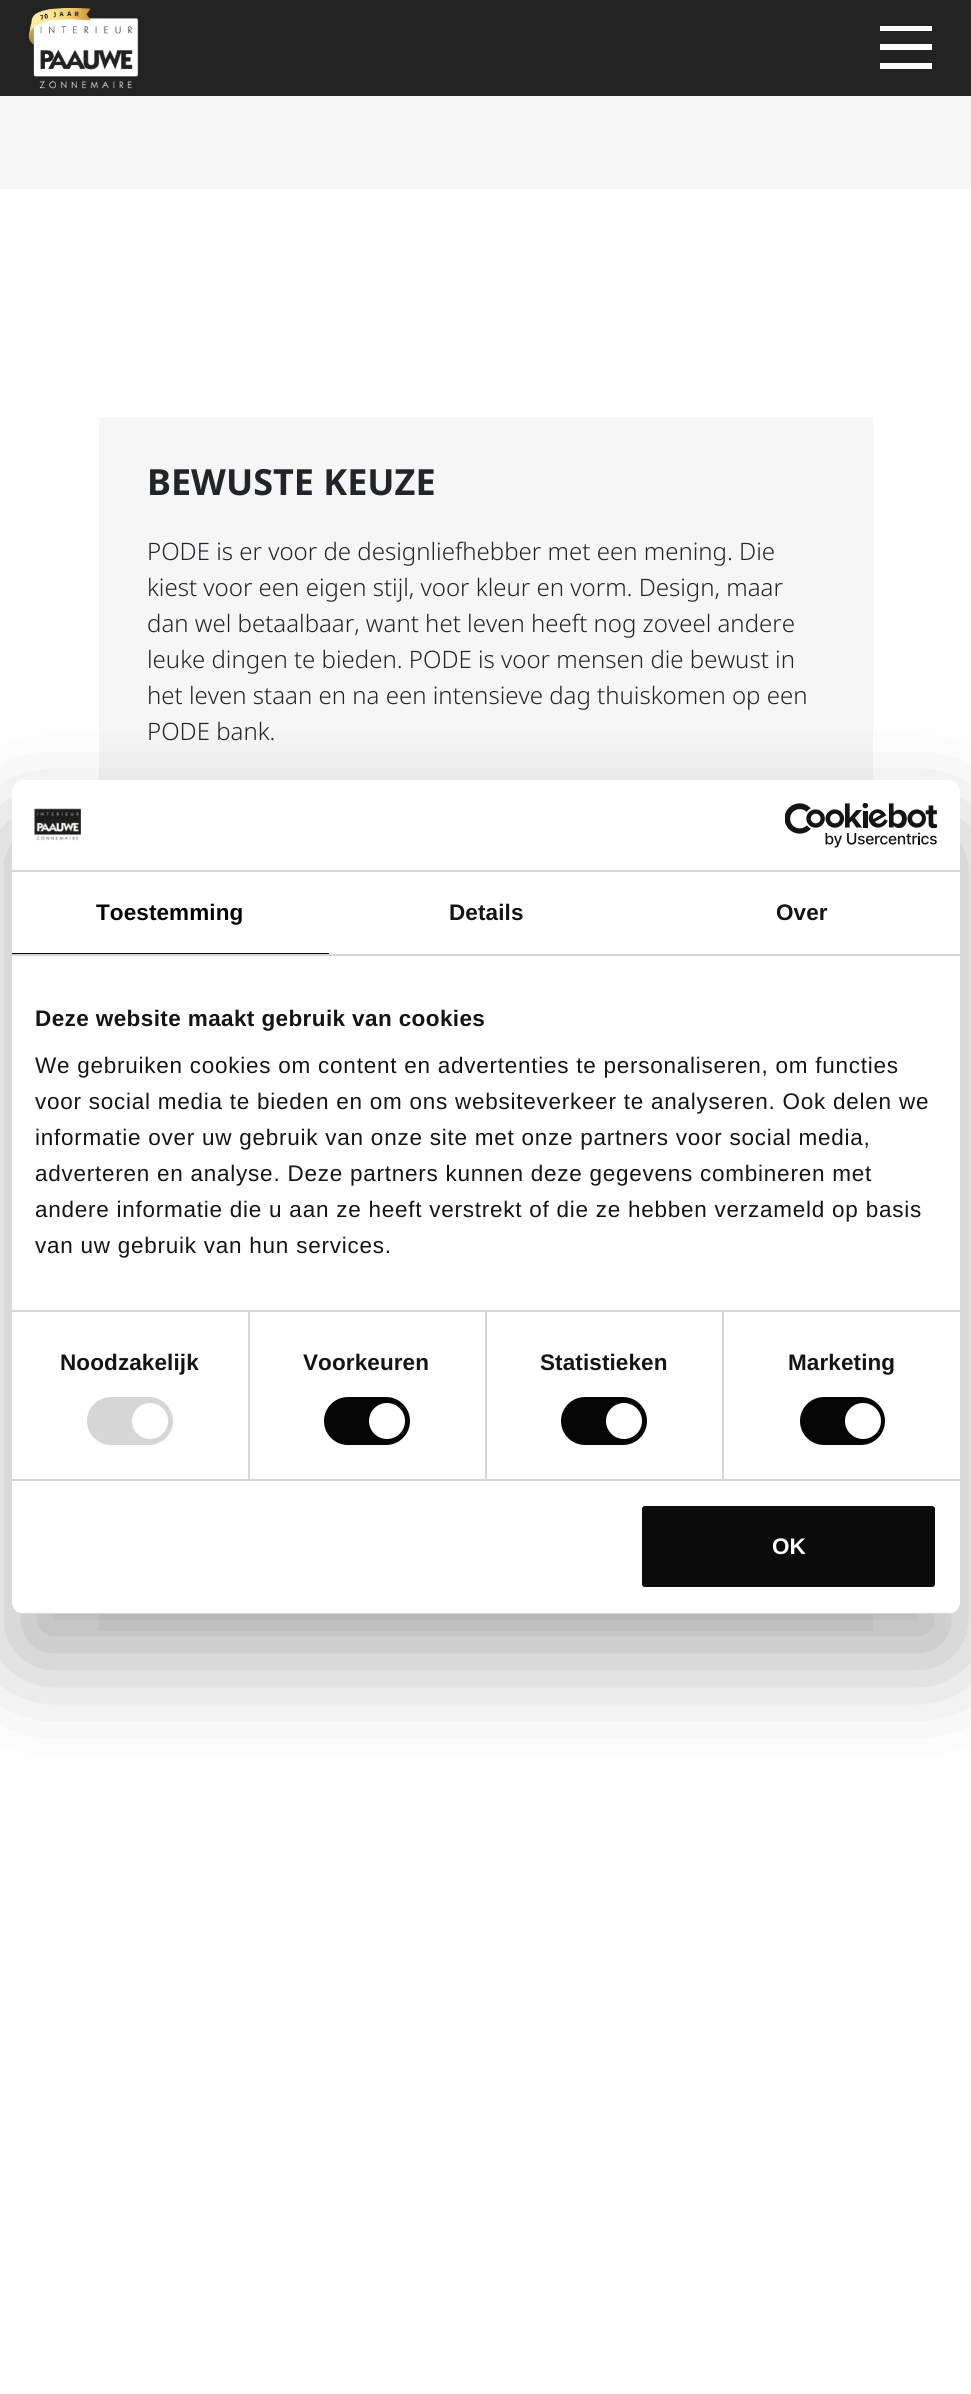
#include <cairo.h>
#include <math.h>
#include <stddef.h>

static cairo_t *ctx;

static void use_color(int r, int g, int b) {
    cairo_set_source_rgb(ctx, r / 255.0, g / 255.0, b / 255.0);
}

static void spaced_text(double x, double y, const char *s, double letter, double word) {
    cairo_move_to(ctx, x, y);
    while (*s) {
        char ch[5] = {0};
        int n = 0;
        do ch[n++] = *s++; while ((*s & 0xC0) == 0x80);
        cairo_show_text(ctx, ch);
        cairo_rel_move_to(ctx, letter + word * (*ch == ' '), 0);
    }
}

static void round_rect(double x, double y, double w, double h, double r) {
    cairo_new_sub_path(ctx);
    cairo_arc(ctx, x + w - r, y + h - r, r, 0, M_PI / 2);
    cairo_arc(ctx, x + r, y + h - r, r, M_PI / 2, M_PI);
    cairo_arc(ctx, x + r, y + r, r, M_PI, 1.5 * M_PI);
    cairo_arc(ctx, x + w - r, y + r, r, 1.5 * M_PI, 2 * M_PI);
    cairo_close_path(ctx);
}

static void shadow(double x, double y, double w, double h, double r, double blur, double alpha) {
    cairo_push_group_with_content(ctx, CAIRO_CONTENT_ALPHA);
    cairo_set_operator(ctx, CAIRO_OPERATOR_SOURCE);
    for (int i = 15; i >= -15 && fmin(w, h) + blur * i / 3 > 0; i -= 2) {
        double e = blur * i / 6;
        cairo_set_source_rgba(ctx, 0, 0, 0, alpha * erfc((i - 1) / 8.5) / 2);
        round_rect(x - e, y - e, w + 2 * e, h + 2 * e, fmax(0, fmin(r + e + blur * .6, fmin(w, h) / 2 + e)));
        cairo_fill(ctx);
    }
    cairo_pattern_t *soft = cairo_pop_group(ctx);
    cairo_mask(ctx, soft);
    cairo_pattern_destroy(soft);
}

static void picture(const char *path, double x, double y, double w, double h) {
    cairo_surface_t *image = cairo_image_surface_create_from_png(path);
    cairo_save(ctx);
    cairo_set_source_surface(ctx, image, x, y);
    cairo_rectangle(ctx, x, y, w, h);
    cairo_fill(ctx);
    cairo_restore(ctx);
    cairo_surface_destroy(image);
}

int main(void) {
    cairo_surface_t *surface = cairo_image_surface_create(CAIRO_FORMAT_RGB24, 971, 2394);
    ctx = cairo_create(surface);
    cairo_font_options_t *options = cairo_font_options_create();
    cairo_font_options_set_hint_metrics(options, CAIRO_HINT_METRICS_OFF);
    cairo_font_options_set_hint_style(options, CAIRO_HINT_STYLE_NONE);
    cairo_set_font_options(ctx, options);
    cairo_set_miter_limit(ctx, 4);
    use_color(255, 255, 255);
    cairo_paint(ctx);
    use_color(34, 34, 34);
    cairo_rectangle(ctx, 0, 0, 971, 96);
    cairo_fill(ctx);
    picture("img1.png", 28, 7, 111, 82);
    use_color(255, 255, 255);
    cairo_new_path(ctx);
    cairo_move_to(ctx, 880, 26);
    cairo_line_to(ctx, 932, 26);
    cairo_line_to(ctx, 932, 31);
    cairo_line_to(ctx, 880, 31);
    cairo_close_path(ctx);
    cairo_move_to(ctx, 880, 44);
    cairo_line_to(ctx, 932, 44);
    cairo_line_to(ctx, 932, 50);
    cairo_line_to(ctx, 880, 50);
    cairo_close_path(ctx);
    cairo_move_to(ctx, 932, 63);
    cairo_line_to(ctx, 932, 69);
    cairo_line_to(ctx, 880, 69);
    cairo_line_to(ctx, 880, 63);
    cairo_close_path(ctx);
    cairo_fill(ctx);
    use_color(246, 246, 246);
    cairo_rectangle(ctx, 0, 96, 971, 93);
    cairo_fill(ctx);
    cairo_rectangle(ctx, 99, 417, 774, 363);
    cairo_fill(ctx);
    cairo_select_font_face(ctx, "Noto Sans", CAIRO_FONT_SLANT_NORMAL, CAIRO_FONT_WEIGHT_BOLD);
    cairo_set_font_size(ctx, 36);
    use_color(33, 37, 41);
    cairo_move_to(ctx, 147, 495);
    cairo_show_text(ctx, "BEWUSTE KEUZE");
    cairo_select_font_face(ctx, "Noto Sans Light", CAIRO_FONT_SLANT_NORMAL, CAIRO_FONT_WEIGHT_NORMAL);
    cairo_set_font_size(ctx, 24);
    cairo_move_to(ctx, 147, 560);
    cairo_show_text(ctx, "PODE is er voor de designliefhebber met een mening. Die");
    cairo_move_to(ctx, 147, 596);
    cairo_show_text(ctx, "kiest voor een eigen stijl, voor kleur en vorm. Design, maar");
    cairo_move_to(ctx, 147, 632);
    cairo_show_text(ctx, "dan wel betaalbaar, want het leven heeft nog zoveel andere");
    cairo_move_to(ctx, 147, 668);
    cairo_show_text(ctx, "leuke dingen te bieden. PODE is voor mensen die bewust in");
    cairo_move_to(ctx, 147, 704);
    cairo_show_text(ctx, "het leven staan en na een intensieve dag thuiskomen op een");
    cairo_move_to(ctx, 147, 740);
    cairo_show_text(ctx, "PODE bank.");
    use_color(246, 246, 246);
    cairo_rectangle(ctx, 99, 1614, 774, 17);
    cairo_fill(ctx);
    use_color(0, 0, 0);
    shadow(12, 828, 948, 834, 12, 51, 0.3);
    use_color(255, 255, 255);
    round_rect(12, 780, 948, 834, 12);
    cairo_fill(ctx);
    use_color(214, 214, 214);
    cairo_rectangle(ctx, 12, 870, 948, 2);
    cairo_fill(ctx);
    picture("img2.png", 34, 808, 47, 33);
    picture("img3.png", 785, 803, 153, 45);
    cairo_rectangle(ctx, 12, 954, 948, 2);
    cairo_fill(ctx);
    use_color(5, 5, 6);
    cairo_rectangle(ctx, 12, 953, 317, 1);
    cairo_fill(ctx);
    cairo_select_font_face(ctx, "Liberation Sans", CAIRO_FONT_SLANT_NORMAL, CAIRO_FONT_WEIGHT_BOLD);
    cairo_set_font_size(ctx, 22.5);
    spaced_text(96, 920, "Toestemming", 0.1, 0);
    use_color(20, 20, 20);
    spaced_text(449, 920, "Details", 0.1, 0);
    spaced_text(776, 920, "Over", 0.1, 0);
    use_color(214, 214, 214);
    cairo_rectangle(ctx, 248, 1311, 2, 168);
    cairo_fill(ctx);
    cairo_rectangle(ctx, 485, 1311, 2, 168);
    cairo_fill(ctx);
    cairo_rectangle(ctx, 722, 1311, 2, 168);
    cairo_fill(ctx);
    cairo_rectangle(ctx, 12, 1310, 948, 2);
    cairo_fill(ctx);
    use_color(20, 20, 20);
    spaced_text(35, 1026, "Deze website maakt gebruik van cookies", 0.4, 0);
    cairo_select_font_face(ctx, "Liberation Sans", CAIRO_FONT_SLANT_NORMAL, CAIRO_FONT_WEIGHT_NORMAL);
    spaced_text(35, 1073, "We gebruiken cookies om content en advertenties te personaliseren, om functies", 0.75, 0);
    spaced_text(35, 1109, "voor social media te bieden en om ons websiteverkeer te analyseren. Ook delen we", 0.75, 0);
    spaced_text(35, 1145, "informatie over uw gebruik van onze site met onze partners voor social media,", 0.75, 0);
    spaced_text(35, 1181, "adverteren en analyse. Deze partners kunnen deze gegevens combineren met", 0.75, 0);
    spaced_text(35, 1217, "andere informatie die u aan ze heeft verstrekt of die ze hebben verzameld op basis", 0.75, 0);
    spaced_text(35, 1253, "van uw gebruik van hun services.", 0.75, 0);
    use_color(214, 214, 214);
    cairo_rectangle(ctx, 12, 1479, 948, 2);
    cairo_fill(ctx);
    cairo_select_font_face(ctx, "Liberation Sans", CAIRO_FONT_SLANT_NORMAL, CAIRO_FONT_WEIGHT_BOLD);
    use_color(20, 20, 20);
    spaced_text(60, 1370, "Noodzakelijk", 0.1, 0);
    use_color(214, 214, 214);
    round_rect(87, 1397, 86, 48, 24);
    cairo_fill(ctx);
    use_color(255, 255, 255);
    cairo_arc(ctx, 150, 1421, 18, 0, 2 * M_PI);
    cairo_fill(ctx);
    use_color(20, 20, 20);
    spaced_text(303, 1370, "Voorkeuren", 0.1, 0);
    use_color(5, 5, 6);
    round_rect(324, 1397, 86, 48, 24);
    cairo_fill(ctx);
    use_color(255, 255, 255);
    cairo_arc(ctx, 387, 1421, 18, 0, 2 * M_PI);
    cairo_fill(ctx);
    use_color(20, 20, 20);
    spaced_text(540, 1370, "Statistieken", 0.1, 0);
    use_color(5, 5, 6);
    round_rect(561, 1397, 86, 48, 24);
    cairo_fill(ctx);
    use_color(255, 255, 255);
    cairo_arc(ctx, 624, 1421, 18, 0, 2 * M_PI);
    cairo_fill(ctx);
    use_color(20, 20, 20);
    spaced_text(788, 1370, "Marketing", 0.1, 0);
    use_color(5, 5, 6);
    round_rect(800, 1397, 85, 48, 24);
    cairo_fill(ctx);
    use_color(255, 255, 255);
    cairo_arc(ctx, 863, 1421, 18, 0, 2 * M_PI);
    cairo_fill(ctx);
    cairo_save(ctx);
    round_rect(12, 780, 948, 834, 12);
    cairo_clip(ctx);
    use_color(214, 214, 214);
    cairo_rectangle(ctx, 12, 1613, 948, 1);
    cairo_fill(ctx);
    cairo_restore(ctx);
    use_color(11, 11, 11);
    round_rect(640.5, 1504.5, 296, 84, 4.5);
    cairo_fill_preserve(ctx);
    use_color(255, 255, 255);
    cairo_set_line_width(ctx, 3);
    cairo_stroke(ctx);
    cairo_move_to(ctx, 772, 1554);
    cairo_show_text(ctx, "OK");
    cairo_surface_write_to_png(surface, "result.png");
    cairo_font_options_destroy(options);
    cairo_destroy(ctx);
    cairo_surface_destroy(surface);
    return 0;
}
